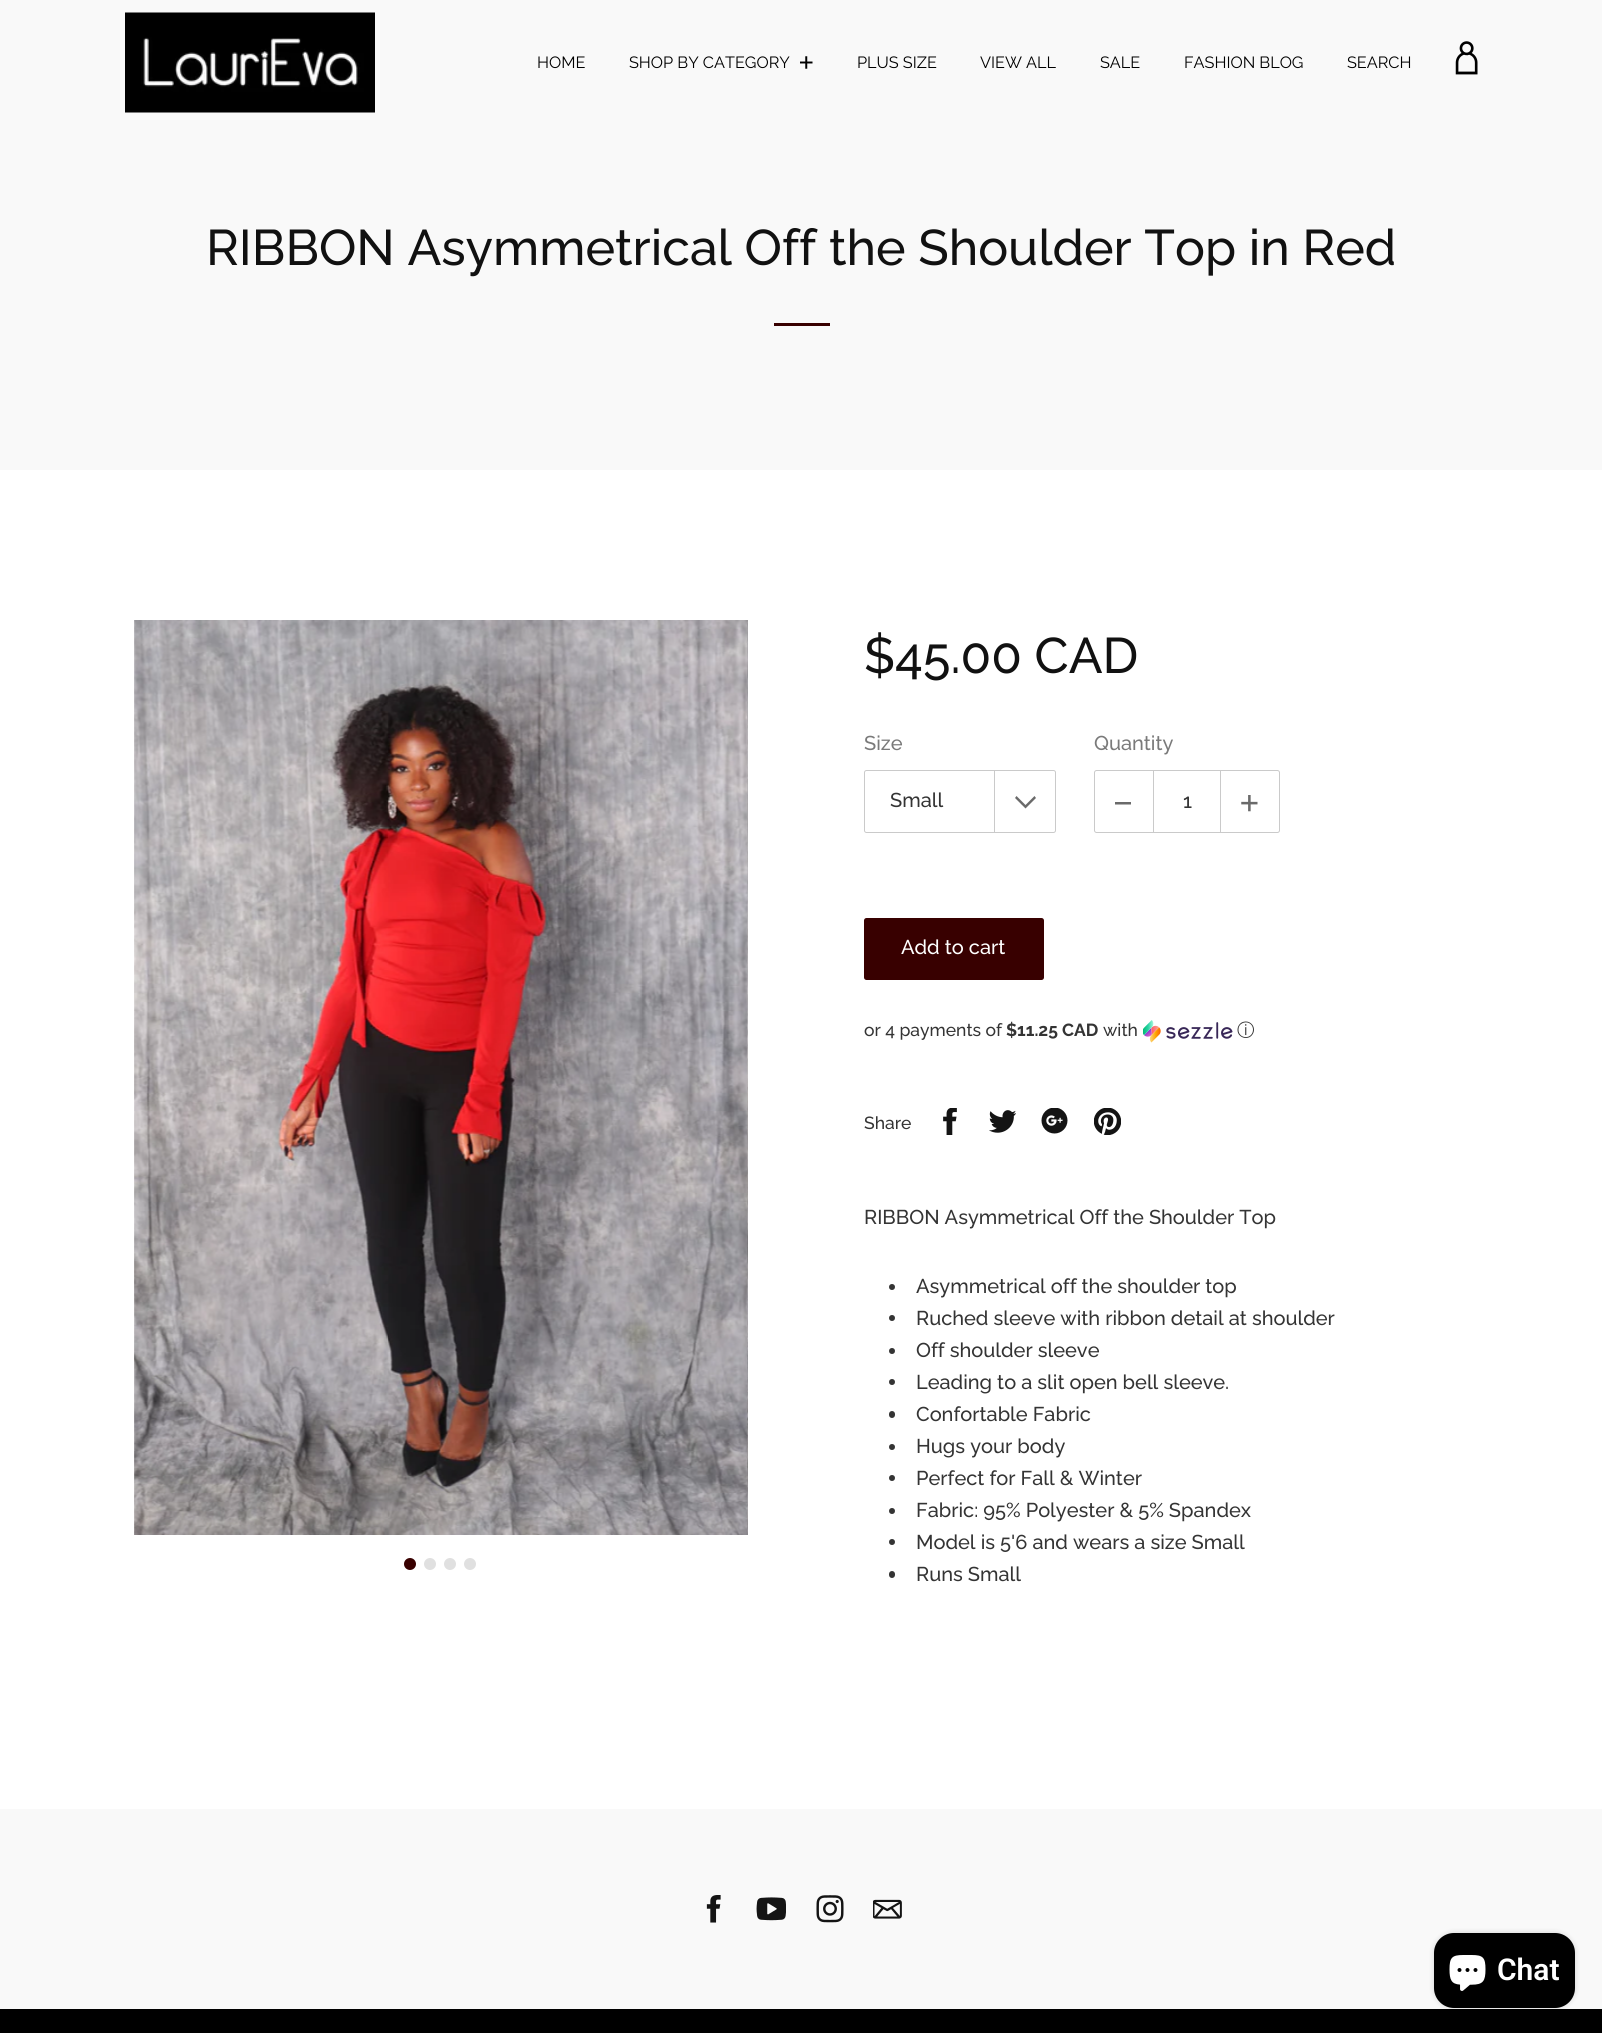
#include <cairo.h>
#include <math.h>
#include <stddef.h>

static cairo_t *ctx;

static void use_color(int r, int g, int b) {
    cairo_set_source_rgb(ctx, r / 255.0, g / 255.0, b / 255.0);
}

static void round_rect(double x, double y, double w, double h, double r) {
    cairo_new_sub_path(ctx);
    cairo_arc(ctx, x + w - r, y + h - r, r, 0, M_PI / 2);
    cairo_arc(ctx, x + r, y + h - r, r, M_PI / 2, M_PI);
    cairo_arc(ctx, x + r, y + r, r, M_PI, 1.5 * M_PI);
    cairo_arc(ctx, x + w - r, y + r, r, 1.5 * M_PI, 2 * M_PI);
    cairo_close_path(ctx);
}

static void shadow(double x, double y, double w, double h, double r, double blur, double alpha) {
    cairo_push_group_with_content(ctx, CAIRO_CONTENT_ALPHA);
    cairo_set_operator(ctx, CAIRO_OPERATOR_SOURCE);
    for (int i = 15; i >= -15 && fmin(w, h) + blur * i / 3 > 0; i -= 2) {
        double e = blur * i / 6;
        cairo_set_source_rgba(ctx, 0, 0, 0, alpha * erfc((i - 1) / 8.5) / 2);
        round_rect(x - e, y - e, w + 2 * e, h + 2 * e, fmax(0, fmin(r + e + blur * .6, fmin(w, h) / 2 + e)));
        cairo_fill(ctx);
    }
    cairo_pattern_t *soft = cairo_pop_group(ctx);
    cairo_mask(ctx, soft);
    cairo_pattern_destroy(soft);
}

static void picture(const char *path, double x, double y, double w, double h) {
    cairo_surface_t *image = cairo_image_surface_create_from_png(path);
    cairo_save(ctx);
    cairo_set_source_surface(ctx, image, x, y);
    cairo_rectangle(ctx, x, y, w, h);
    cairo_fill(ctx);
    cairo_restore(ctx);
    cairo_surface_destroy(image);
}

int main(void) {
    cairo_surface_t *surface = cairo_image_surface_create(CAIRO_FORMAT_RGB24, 1602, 2033);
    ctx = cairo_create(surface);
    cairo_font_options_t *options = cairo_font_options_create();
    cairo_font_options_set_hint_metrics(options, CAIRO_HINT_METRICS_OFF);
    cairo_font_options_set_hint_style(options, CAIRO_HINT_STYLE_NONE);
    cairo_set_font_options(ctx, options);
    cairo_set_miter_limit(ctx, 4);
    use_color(255, 255, 255);
    cairo_paint(ctx);
    use_color(249, 249, 249);
    cairo_rectangle(ctx, 0, 0, 1602, 470);
    cairo_fill(ctx);
    picture("img1.png", 125, 12, 250, 101);
    cairo_select_font_face(ctx, "Raleway", CAIRO_FONT_SLANT_NORMAL, CAIRO_FONT_WEIGHT_NORMAL);
    cairo_set_font_size(ctx, 16.25);
    use_color(0, 0, 0);
    cairo_move_to(ctx, 537, 68);
    cairo_show_text(ctx, "HOME");
    cairo_move_to(ctx, 629, 68);
    cairo_show_text(ctx, "SHOP BY CATEGORY");
    picture("img2.png", 800, 56, 13, 13);
    cairo_move_to(ctx, 857, 68);
    cairo_show_text(ctx, "PLUS SIZE");
    cairo_move_to(ctx, 980, 68);
    cairo_show_text(ctx, "VIEW ALL");
    cairo_move_to(ctx, 1100, 68);
    cairo_show_text(ctx, "SALE");
    cairo_move_to(ctx, 1184, 68);
    cairo_show_text(ctx, "FASHION BLOG");
    cairo_move_to(ctx, 1347, 68);
    cairo_show_text(ctx, "SEARCH");
    picture("img3.png", 1455, 41, 23, 34);
    cairo_select_font_face(ctx, "Raleway Medium", CAIRO_FONT_SLANT_NORMAL, CAIRO_FONT_WEIGHT_NORMAL);
    cairo_set_font_size(ctx, 50);
    use_color(17, 17, 17);
    cairo_move_to(ctx, 206, 265);
    cairo_show_text(ctx, "RIBBON Asymmetrical Off the Shoulder Top in Red");
    use_color(56, 0, 0);
    cairo_rectangle(ctx, 774, 323, 56, 3);
    cairo_fill(ctx);
    picture("img4.png", 134, 620, 614, 915);
    picture("img5.png", 747, 623, 1, 910);
    cairo_arc(ctx, 410, 1564, 6, 0, 2 * M_PI);
    cairo_fill(ctx);
    use_color(224, 224, 224);
    cairo_arc(ctx, 430, 1564, 6, 0, 2 * M_PI);
    cairo_fill(ctx);
    cairo_arc(ctx, 450, 1564, 6, 0, 2 * M_PI);
    cairo_fill(ctx);
    cairo_arc(ctx, 470, 1564, 6, 0, 2 * M_PI);
    cairo_fill(ctx);
    use_color(17, 17, 17);
    cairo_move_to(ctx, 864, 673);
    cairo_show_text(ctx, "$45.00 CAD");
    cairo_set_font_size(ctx, 20);
    use_color(122, 122, 122);
    cairo_move_to(ctx, 864, 750);
    cairo_show_text(ctx, "Size");
    use_color(202, 202, 202);
    cairo_rectangle(ctx, 994, 770, 1, 63);
    cairo_fill(ctx);
    use_color(106, 106, 106);
    cairo_new_path(ctx);
    cairo_move_to(ctx, 1036, 798);
    cairo_line_to(ctx, 1034.5, 796);
    cairo_line_to(ctx, 1025.5, 805);
    cairo_line_to(ctx, 1016.5, 796);
    cairo_line_to(ctx, 1015, 798);
    cairo_line_to(ctx, 1025.5, 808.5);
    cairo_close_path(ctx);
    cairo_fill(ctx);
    round_rect(864.5, 770.5, 191, 62, 2);
    use_color(202, 202, 202);
    cairo_set_line_width(ctx, 1);
    cairo_stroke(ctx);
    use_color(52, 52, 52);
    cairo_move_to(ctx, 890, 807);
    cairo_show_text(ctx, "Small");
    use_color(122, 122, 122);
    cairo_move_to(ctx, 1094, 750);
    cairo_show_text(ctx, "Quantity");
    use_color(106, 106, 106);
    cairo_new_path(ctx);
    cairo_move_to(ctx, 1122, 802);
    cairo_line_to(ctx, 1115, 802);
    cairo_line_to(ctx, 1115, 804.5);
    cairo_line_to(ctx, 1131, 804.5);
    cairo_line_to(ctx, 1131, 802);
    cairo_close_path(ctx);
    cairo_fill(ctx);
    cairo_rectangle(ctx, 1153.5, 770.5, 67, 62);
    use_color(202, 202, 202);
    cairo_stroke(ctx);
    cairo_new_path(ctx);
    cairo_move_to(ctx, 1096.5, 770.5);
    cairo_line_to(ctx, 1153.5, 770.5);
    cairo_line_to(ctx, 1153.5, 832.5);
    cairo_line_to(ctx, 1096.5, 832.5);
    cairo_curve_to(ctx, 1095.5, 832.5, 1094.5, 831.5, 1094.5, 830.5);
    cairo_line_to(ctx, 1094.5, 772.5);
    cairo_curve_to(ctx, 1094.5, 771.5, 1095.5, 770.5, 1096.5, 770.5);
    cairo_close_path(ctx);
    cairo_stroke(ctx);
    use_color(52, 52, 52);
    cairo_move_to(ctx, 1183, 808);
    cairo_show_text(ctx, "1");
    picture("img6.png", 1241, 795, 17, 17);
    cairo_new_path(ctx);
    cairo_move_to(ctx, 1220.5, 770.5);
    cairo_line_to(ctx, 1277.5, 770.5);
    cairo_curve_to(ctx, 1278.5, 770.5, 1279.5, 771.5, 1279.5, 772.5);
    cairo_line_to(ctx, 1279.5, 830.5);
    cairo_curve_to(ctx, 1279.5, 831.5, 1278.5, 832.5, 1277.5, 832.5);
    cairo_line_to(ctx, 1220.5, 832.5);
    cairo_close_path(ctx);
    use_color(202, 202, 202);
    cairo_stroke(ctx);
    use_color(56, 0, 0);
    round_rect(864, 918, 180, 62, 2.5);
    cairo_fill(ctx);
    use_color(255, 255, 255);
    cairo_move_to(ctx, 901, 954);
    cairo_show_text(ctx, "Add to cart");
    cairo_set_font_size(ctx, 17.5);
    use_color(52, 52, 52);
    cairo_move_to(ctx, 864, 1036);
    cairo_show_text(ctx, "or 4 payments of");
    cairo_select_font_face(ctx, "Raleway", CAIRO_FONT_SLANT_NORMAL, CAIRO_FONT_WEIGHT_BOLD);
    cairo_move_to(ctx, 1006, 1036);
    cairo_show_text(ctx, "$11.25 CAD");
    cairo_select_font_face(ctx, "Raleway Medium", CAIRO_FONT_SLANT_NORMAL, CAIRO_FONT_WEIGHT_NORMAL);
    cairo_move_to(ctx, 1103, 1036);
    cairo_show_text(ctx, "with");
    picture("img7.png", 1143, 1020, 90, 23);
    cairo_select_font_face(ctx, "WenQuanYi Zen Hei Medium", CAIRO_FONT_SLANT_NORMAL, CAIRO_FONT_WEIGHT_NORMAL);
    cairo_move_to(ctx, 1237, 1036);
    cairo_show_text(ctx, "ⓘ");
    cairo_select_font_face(ctx, "Raleway Medium", CAIRO_FONT_SLANT_NORMAL, CAIRO_FONT_WEIGHT_NORMAL);
    cairo_move_to(ctx, 864, 1129);
    cairo_show_text(ctx, "Share");
    picture("img8.png", 943, 1108, 14, 27);
    picture("img9.png", 989, 1110, 27, 23);
    picture("img10.png", 1041, 1108, 27, 26);
    picture("img11.png", 1094, 1108, 27, 27);
    cairo_set_font_size(ctx, 20);
    cairo_move_to(ctx, 864, 1224);
    cairo_show_text(ctx, "RIBBON Asymmetrical Off the Shoulder Top");
    cairo_new_path(ctx);
    cairo_arc(ctx, 892, 1287, 3, 0, 2 * M_PI);
    cairo_fill(ctx);
    cairo_move_to(ctx, 916, 1293);
    cairo_show_text(ctx, "Asymmetrical off the shoulder top");
    cairo_new_path(ctx);
    cairo_arc(ctx, 892, 1318, 3, 0, 2 * M_PI);
    cairo_fill(ctx);
    cairo_move_to(ctx, 916, 1325);
    cairo_show_text(ctx, "Ruched sleeve with ribbon detail at shoulder");
    cairo_new_path(ctx);
    cairo_arc(ctx, 892, 1351, 3, 0, 2 * M_PI);
    cairo_fill(ctx);
    cairo_move_to(ctx, 916, 1357);
    cairo_show_text(ctx, "Off shoulder sleeve");
    cairo_new_path(ctx);
    cairo_arc(ctx, 892, 1382, 3, 0, 2 * M_PI);
    cairo_fill(ctx);
    cairo_move_to(ctx, 916, 1389);
    cairo_show_text(ctx, "Leading to a slit open bell sleeve.");
    round_rect(889, 1411, 6, 7, 3);
    cairo_fill(ctx);
    cairo_move_to(ctx, 916, 1421);
    cairo_show_text(ctx, "Confortable Fabric");
    cairo_new_path(ctx);
    cairo_arc(ctx, 892, 1447, 3, 0, 2 * M_PI);
    cairo_fill(ctx);
    cairo_move_to(ctx, 916, 1453);
    cairo_show_text(ctx, "Hugs your body");
    cairo_new_path(ctx);
    cairo_arc(ctx, 892, 1478, 3, 0, 2 * M_PI);
    cairo_fill(ctx);
    cairo_move_to(ctx, 916, 1485);
    cairo_show_text(ctx, "Perfect for Fall & Winter");
    cairo_new_path(ctx);
    cairo_arc(ctx, 892, 1511, 3, 0, 2 * M_PI);
    cairo_fill(ctx);
    cairo_move_to(ctx, 916, 1517);
    cairo_show_text(ctx, "Fabric: 95% Polyester & 5% Spandex");
    cairo_new_path(ctx);
    cairo_arc(ctx, 892, 1542, 3, 0, 2 * M_PI);
    cairo_fill(ctx);
    cairo_move_to(ctx, 916, 1549);
    cairo_show_text(ctx, "Model is 5'6 and wears a size Small");
    round_rect(889, 1571, 6, 7, 3);
    cairo_fill(ctx);
    cairo_move_to(ctx, 916, 1581);
    cairo_show_text(ctx, "Runs Small");
    use_color(249, 249, 249);
    cairo_rectangle(ctx, 0, 1809, 1602, 200);
    cairo_fill(ctx);
    picture("img12.png", 706, 1895, 15, 28);
    picture("img13.png", 756, 1897, 30, 24);
    picture("img14.png", 816, 1895, 28, 28);
    picture("img15.png", 873, 1899, 29, 20);
    use_color(0, 0, 0);
    cairo_rectangle(ctx, 0, 2009, 1602, 24);
    cairo_fill(ctx);
    use_color(0, 0, 0);
    shadow(1434, 1933, 141, 75, 20, 3, 0.15);
    use_color(0, 0, 0);
    round_rect(1434, 1933, 141, 75, 20);
    cairo_fill(ctx);
    picture("img16.png", 1449, 1955, 37, 36);
    cairo_select_font_face(ctx, "Roboto SemiBold", CAIRO_FONT_SLANT_NORMAL, CAIRO_FONT_WEIGHT_NORMAL);
    cairo_set_font_size(ctx, 30);
    use_color(255, 255, 255);
    cairo_move_to(ctx, 1497, 1980);
    cairo_show_text(ctx, "Chat");
    cairo_surface_write_to_png(surface, "result.png");
    cairo_font_options_destroy(options);
    cairo_destroy(ctx);
    cairo_surface_destroy(surface);
    return 0;
}
